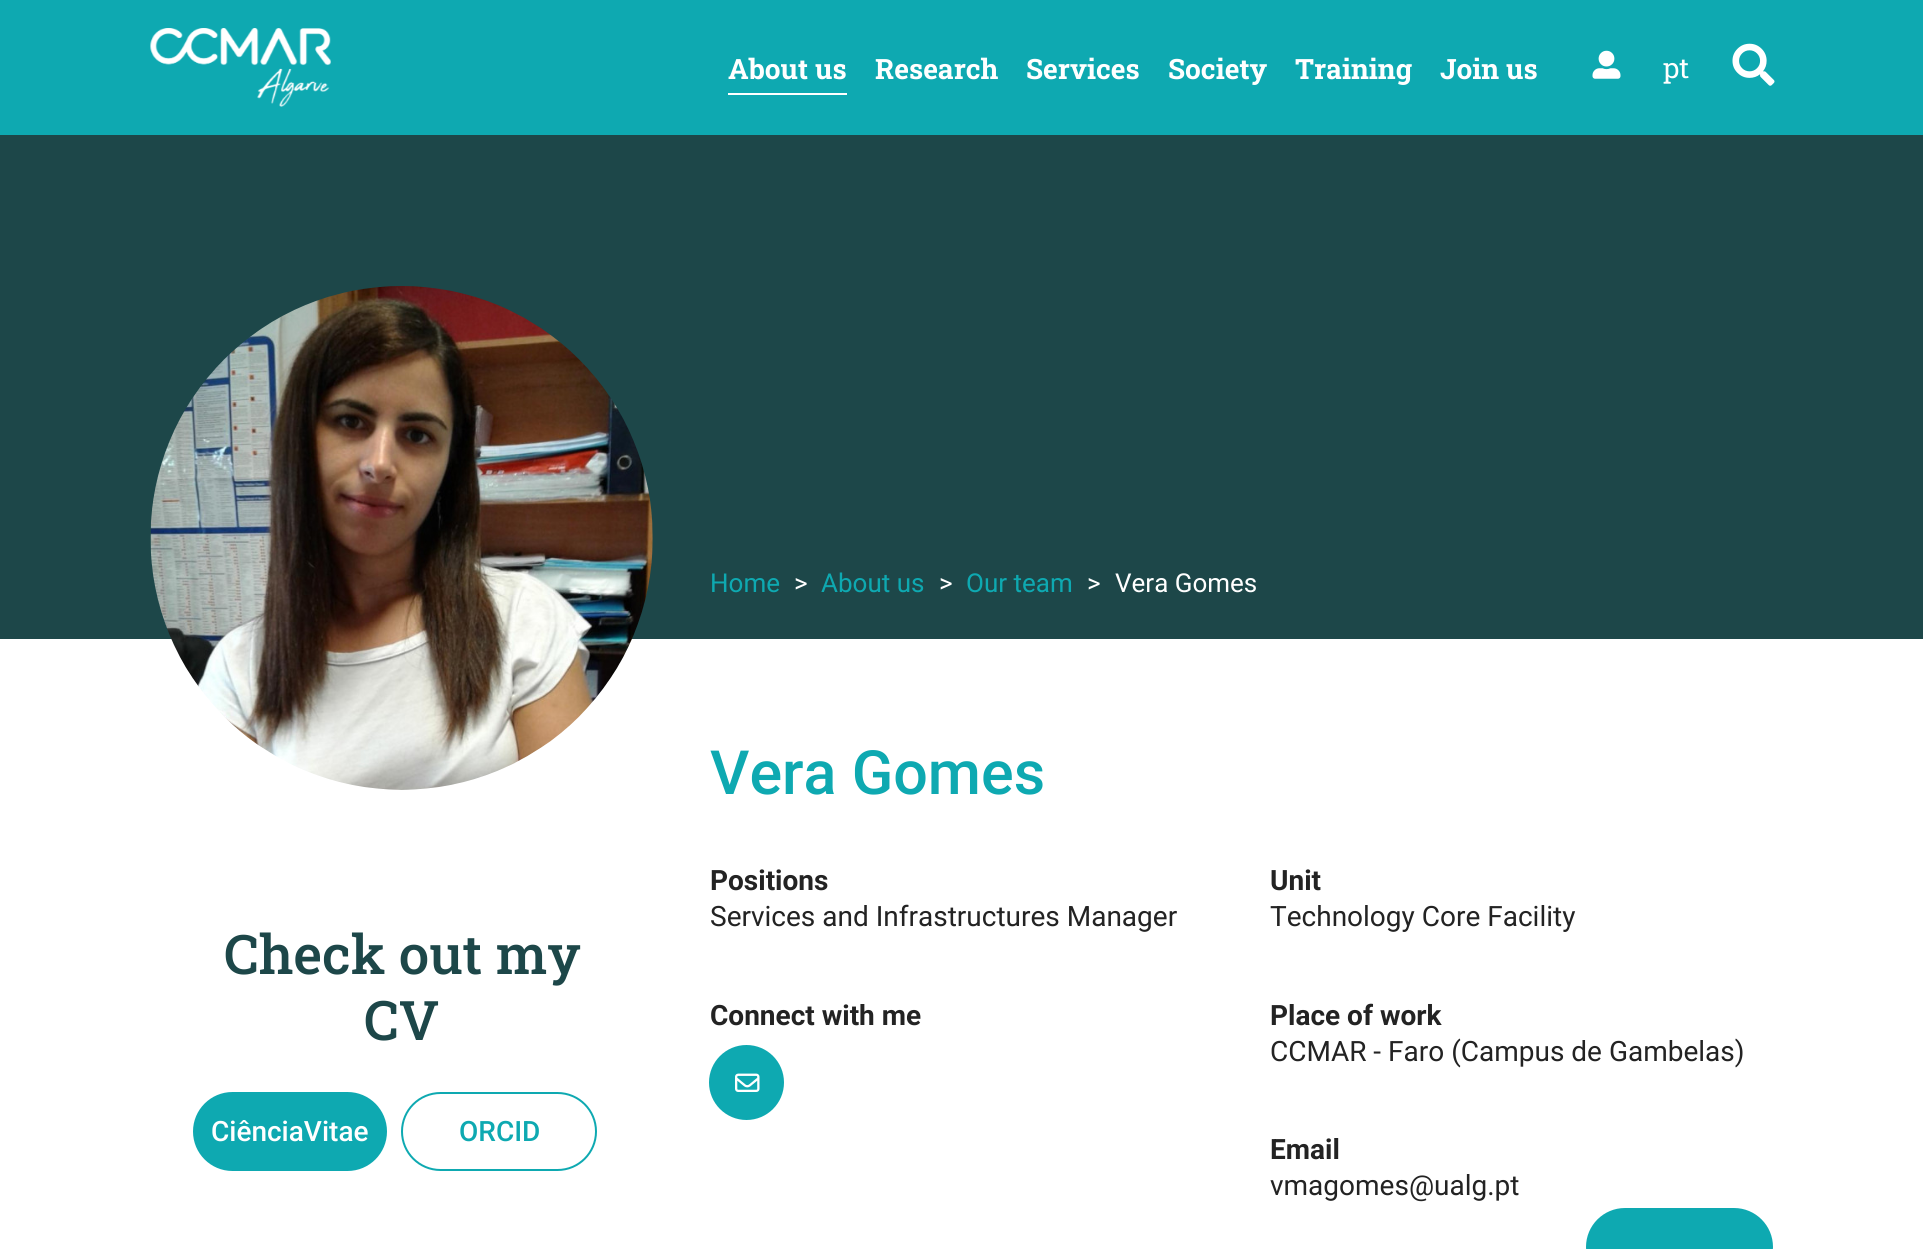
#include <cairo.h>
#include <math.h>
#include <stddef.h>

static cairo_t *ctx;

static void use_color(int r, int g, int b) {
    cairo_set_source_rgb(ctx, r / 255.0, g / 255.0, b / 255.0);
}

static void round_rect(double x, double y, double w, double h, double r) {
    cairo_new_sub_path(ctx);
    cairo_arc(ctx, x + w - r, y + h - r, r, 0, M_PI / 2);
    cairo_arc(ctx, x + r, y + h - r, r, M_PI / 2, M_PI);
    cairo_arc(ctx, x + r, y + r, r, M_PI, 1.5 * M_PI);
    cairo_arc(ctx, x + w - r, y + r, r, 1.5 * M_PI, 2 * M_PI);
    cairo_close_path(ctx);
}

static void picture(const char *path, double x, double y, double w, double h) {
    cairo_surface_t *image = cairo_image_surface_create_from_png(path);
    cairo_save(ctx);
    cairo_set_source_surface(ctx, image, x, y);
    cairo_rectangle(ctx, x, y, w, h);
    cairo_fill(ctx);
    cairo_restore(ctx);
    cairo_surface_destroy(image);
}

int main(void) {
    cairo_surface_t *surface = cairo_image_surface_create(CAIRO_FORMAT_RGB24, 1923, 1249);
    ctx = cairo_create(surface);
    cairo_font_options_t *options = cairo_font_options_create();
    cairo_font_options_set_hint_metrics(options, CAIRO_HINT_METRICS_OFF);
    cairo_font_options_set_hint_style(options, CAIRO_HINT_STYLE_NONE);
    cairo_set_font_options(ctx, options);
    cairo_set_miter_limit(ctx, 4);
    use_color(255, 255, 255);
    cairo_paint(ctx);
    use_color(14, 169, 177);
    cairo_rectangle(ctx, 0, 0, 1923, 135);
    cairo_fill(ctx);
    picture("img1.png", 150, 28, 181, 79);
    cairo_select_font_face(ctx, "Roboto Slab", CAIRO_FONT_SLANT_NORMAL, CAIRO_FONT_WEIGHT_BOLD);
    cairo_set_font_size(ctx, 28);
    use_color(255, 255, 255);
    cairo_move_to(ctx, 728, 79);
    cairo_show_text(ctx, "About us");
    cairo_rectangle(ctx, 728, 93, 119, 2);
    cairo_fill(ctx);
    cairo_move_to(ctx, 875, 79);
    cairo_show_text(ctx, "Research");
    cairo_move_to(ctx, 1026, 79);
    cairo_show_text(ctx, "Services");
    cairo_move_to(ctx, 1168, 79);
    cairo_show_text(ctx, "Society");
    cairo_move_to(ctx, 1295, 79);
    cairo_show_text(ctx, "Training");
    cairo_move_to(ctx, 1440, 79);
    cairo_show_text(ctx, "Join us");
    picture("img2.png", 1592, 50, 29, 29);
    cairo_select_font_face(ctx, "Roboto Slab", CAIRO_FONT_SLANT_NORMAL, CAIRO_FONT_WEIGHT_NORMAL);
    cairo_move_to(ctx, 1663, 78);
    cairo_show_text(ctx, "pt");
    picture("img3.png", 1732, 43, 43, 43);
    use_color(29, 71, 73);
    cairo_rectangle(ctx, 0, 135, 1923, 504);
    cairo_fill(ctx);
    picture("img4.png", 150, 286, 503, 504);
    cairo_select_font_face(ctx, "Roboto", CAIRO_FONT_SLANT_NORMAL, CAIRO_FONT_WEIGHT_NORMAL);
    cairo_set_font_size(ctx, 26);
    use_color(14, 169, 177);
    cairo_move_to(ctx, 710, 592);
    cairo_show_text(ctx, "Home");
    use_color(255, 255, 255);
    cairo_move_to(ctx, 794, 592);
    cairo_show_text(ctx, ">");
    use_color(14, 169, 177);
    cairo_move_to(ctx, 821, 592);
    cairo_show_text(ctx, "About us");
    use_color(255, 255, 255);
    cairo_move_to(ctx, 939, 592);
    cairo_show_text(ctx, ">");
    use_color(14, 169, 177);
    cairo_move_to(ctx, 966, 592);
    cairo_show_text(ctx, "Our team");
    use_color(255, 255, 255);
    cairo_move_to(ctx, 1087, 592);
    cairo_show_text(ctx, ">");
    cairo_move_to(ctx, 1115, 592);
    cairo_show_text(ctx, "Vera Gomes");
    cairo_select_font_face(ctx, "Roboto Medium", CAIRO_FONT_SLANT_NORMAL, CAIRO_FONT_WEIGHT_NORMAL);
    cairo_set_font_size(ctx, 61);
    use_color(14, 169, 177);
    cairo_move_to(ctx, 710, 794);
    cairo_show_text(ctx, "Vera Gomes");
    cairo_select_font_face(ctx, "Roboto Slab Medium", CAIRO_FONT_SLANT_NORMAL, CAIRO_FONT_WEIGHT_NORMAL);
    cairo_set_font_size(ctx, 54.5);
    use_color(29, 71, 73);
    cairo_move_to(ctx, 224, 974);
    cairo_show_text(ctx, "Check out my");
    cairo_move_to(ctx, 364, 1040);
    cairo_show_text(ctx, "CV");
    use_color(14, 169, 177);
    round_rect(194, 1093, 192, 77, 38.5);
    cairo_fill_preserve(ctx);
    cairo_stroke(ctx);
    cairo_select_font_face(ctx, "Roboto Medium", CAIRO_FONT_SLANT_NORMAL, CAIRO_FONT_WEIGHT_NORMAL);
    cairo_set_font_size(ctx, 28);
    use_color(255, 255, 255);
    cairo_move_to(ctx, 211, 1141);
    cairo_show_text(ctx, "CiênciaVitae");
    round_rect(402, 1093, 194, 77, 38.5);
    use_color(14, 169, 177);
    cairo_stroke(ctx);
    cairo_move_to(ctx, 459, 1141);
    cairo_show_text(ctx, "ORCID");
    cairo_select_font_face(ctx, "Roboto", CAIRO_FONT_SLANT_NORMAL, CAIRO_FONT_WEIGHT_BOLD);
    use_color(35, 35, 35);
    cairo_move_to(ctx, 710, 890);
    cairo_show_text(ctx, "Positions");
    cairo_select_font_face(ctx, "Roboto", CAIRO_FONT_SLANT_NORMAL, CAIRO_FONT_WEIGHT_NORMAL);
    cairo_move_to(ctx, 710, 926);
    cairo_show_text(ctx, "Services and Infrastructures Manager");
    cairo_select_font_face(ctx, "Roboto", CAIRO_FONT_SLANT_NORMAL, CAIRO_FONT_WEIGHT_BOLD);
    cairo_move_to(ctx, 710, 1025);
    cairo_show_text(ctx, "Connect with me");
    use_color(14, 169, 177);
    cairo_new_path(ctx);
    cairo_arc(ctx, 746.5, 1082.5, 37.5, 0, 2 * M_PI);
    cairo_fill(ctx);
    picture("img5.png", 735, 1073, 25, 19);
    use_color(35, 35, 35);
    cairo_move_to(ctx, 1270, 890);
    cairo_show_text(ctx, "Unit");
    cairo_select_font_face(ctx, "Roboto", CAIRO_FONT_SLANT_NORMAL, CAIRO_FONT_WEIGHT_NORMAL);
    cairo_move_to(ctx, 1270, 926);
    cairo_show_text(ctx, "Technology Core Facility");
    cairo_select_font_face(ctx, "Roboto", CAIRO_FONT_SLANT_NORMAL, CAIRO_FONT_WEIGHT_BOLD);
    cairo_move_to(ctx, 1270, 1025);
    cairo_show_text(ctx, "Place of work");
    cairo_select_font_face(ctx, "Roboto", CAIRO_FONT_SLANT_NORMAL, CAIRO_FONT_WEIGHT_NORMAL);
    cairo_move_to(ctx, 1270, 1061);
    cairo_show_text(ctx, "CCMAR - Faro (Campus de Gambelas)");
    cairo_select_font_face(ctx, "Roboto", CAIRO_FONT_SLANT_NORMAL, CAIRO_FONT_WEIGHT_BOLD);
    cairo_move_to(ctx, 1270, 1159);
    cairo_show_text(ctx, "Email");
    cairo_select_font_face(ctx, "Roboto", CAIRO_FONT_SLANT_NORMAL, CAIRO_FONT_WEIGHT_NORMAL);
    cairo_move_to(ctx, 1270, 1195);
    cairo_show_text(ctx, "vmagomes@ualg.pt");
    use_color(14, 169, 177);
    round_rect(1587, 1209, 185, 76, 38);
    cairo_fill_preserve(ctx);
    cairo_stroke(ctx);
    cairo_surface_write_to_png(surface, "result.png");
    cairo_font_options_destroy(options);
    cairo_destroy(ctx);
    cairo_surface_destroy(surface);
    return 0;
}
